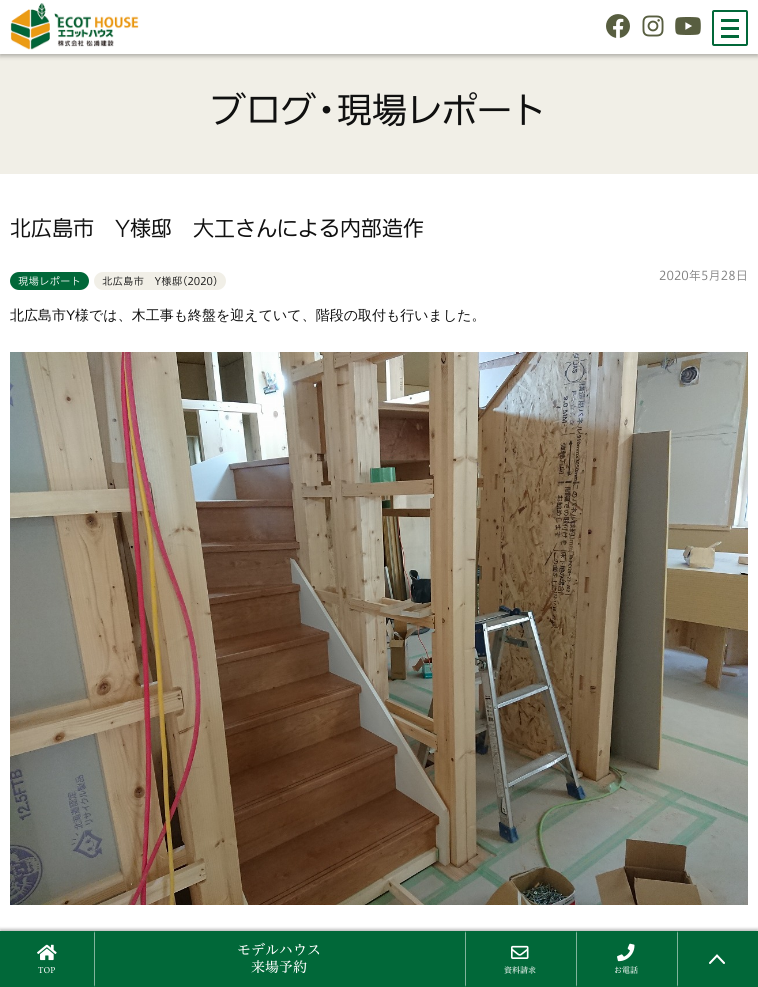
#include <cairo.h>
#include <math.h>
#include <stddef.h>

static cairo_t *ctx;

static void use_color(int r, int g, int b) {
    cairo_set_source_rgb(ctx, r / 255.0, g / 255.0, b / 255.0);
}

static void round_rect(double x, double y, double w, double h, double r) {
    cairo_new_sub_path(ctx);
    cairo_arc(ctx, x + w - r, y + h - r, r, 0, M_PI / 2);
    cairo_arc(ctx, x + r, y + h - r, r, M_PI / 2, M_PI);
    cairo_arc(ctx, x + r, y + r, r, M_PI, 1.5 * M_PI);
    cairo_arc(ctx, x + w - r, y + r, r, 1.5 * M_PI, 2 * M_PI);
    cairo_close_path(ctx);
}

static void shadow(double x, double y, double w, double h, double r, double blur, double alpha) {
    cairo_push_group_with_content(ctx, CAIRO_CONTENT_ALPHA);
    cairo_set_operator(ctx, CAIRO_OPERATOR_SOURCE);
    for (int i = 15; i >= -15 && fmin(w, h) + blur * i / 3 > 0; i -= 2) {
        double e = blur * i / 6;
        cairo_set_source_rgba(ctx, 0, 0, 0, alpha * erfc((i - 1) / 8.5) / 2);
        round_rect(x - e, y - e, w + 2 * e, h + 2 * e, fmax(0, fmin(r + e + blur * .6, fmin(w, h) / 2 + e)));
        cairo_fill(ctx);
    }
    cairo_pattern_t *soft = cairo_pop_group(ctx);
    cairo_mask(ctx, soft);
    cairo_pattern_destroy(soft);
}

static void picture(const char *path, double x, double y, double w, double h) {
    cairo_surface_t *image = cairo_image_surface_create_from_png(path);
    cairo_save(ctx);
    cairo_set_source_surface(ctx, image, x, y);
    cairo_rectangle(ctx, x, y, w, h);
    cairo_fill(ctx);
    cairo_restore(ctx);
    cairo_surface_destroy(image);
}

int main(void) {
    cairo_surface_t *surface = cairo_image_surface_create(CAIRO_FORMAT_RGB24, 758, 987);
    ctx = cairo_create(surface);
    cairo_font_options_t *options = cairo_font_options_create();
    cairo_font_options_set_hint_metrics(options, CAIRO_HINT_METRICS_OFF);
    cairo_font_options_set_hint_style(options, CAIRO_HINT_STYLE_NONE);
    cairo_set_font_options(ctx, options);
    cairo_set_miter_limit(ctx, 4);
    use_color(255, 255, 255);
    cairo_paint(ctx);
    use_color(241, 239, 231);
    cairo_rectangle(ctx, 0, 54, 758, 120);
    cairo_fill(ctx);
    use_color(0, 0, 0);
    shadow(0, 2, 758, 54, 0, 2.5, 0.3);
    use_color(255, 255, 255);
    cairo_rectangle(ctx, 0, 0, 758, 54);
    cairo_fill(ctx);
    picture("img1.png", 10, 3, 129, 47);
    picture("img2.png", 606, 14, 24, 24);
    picture("img3.png", 642, 15, 22, 22);
    picture("img4.png", 675, 17, 26, 18);
    round_rect(713, 11, 34, 34, 1);
    use_color(1, 104, 57);
    cairo_stroke(ctx);
    cairo_rectangle(ctx, 721, 27, 18, 3);
    cairo_fill(ctx);
    cairo_rectangle(ctx, 721, 19, 18, 3);
    cairo_fill(ctx);
    cairo_rectangle(ctx, 721, 35, 18, 3);
    cairo_fill(ctx);
    cairo_select_font_face(ctx, "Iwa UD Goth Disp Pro", CAIRO_FONT_SLANT_NORMAL, CAIRO_FONT_WEIGHT_NORMAL);
    cairo_set_font_size(ctx, 35);
    use_color(16, 16, 16);
    cairo_move_to(ctx, 211, 123);
    cairo_show_text(ctx, "ブログ");
    cairo_move_to(ctx, 309, 123);
    cairo_show_text(ctx, "・");
    cairo_move_to(ctx, 337, 123);
    cairo_show_text(ctx, "現場レポート");
    cairo_set_font_size(ctx, 21);
    cairo_move_to(ctx, 10, 236);
    cairo_show_text(ctx, "北広島市　Y様邸　大工さんによる内部造作");
    use_color(1, 104, 57);
    round_rect(10, 272, 79, 18, 9);
    cairo_fill(ctx);
    cairo_select_font_face(ctx, "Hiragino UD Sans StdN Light", CAIRO_FONT_SLANT_NORMAL, CAIRO_FONT_WEIGHT_NORMAL);
    cairo_set_font_size(ctx, 10.5);
    use_color(255, 255, 255);
    cairo_move_to(ctx, 18, 285);
    cairo_show_text(ctx, "現場レポート");
    use_color(241, 239, 231);
    round_rect(94, 272, 132, 18, 9);
    cairo_fill(ctx);
    use_color(16, 16, 16);
    cairo_move_to(ctx, 102, 285);
    cairo_show_text(ctx, "北広島市　Y様邸(2020)");
    cairo_set_font_size(ctx, 12.25);
    use_color(128, 128, 128);
    cairo_move_to(ctx, 659, 280);
    cairo_show_text(ctx, "2020年5月28日");
    cairo_select_font_face(ctx, "WenQuanYi Zen Hei Medium", CAIRO_FONT_SLANT_NORMAL, CAIRO_FONT_WEIGHT_NORMAL);
    cairo_set_font_size(ctx, 14);
    use_color(16, 16, 16);
    cairo_move_to(ctx, 10, 320);
    cairo_show_text(ctx, "北広島市");
    cairo_select_font_face(ctx, "Liberation Sans", CAIRO_FONT_SLANT_NORMAL, CAIRO_FONT_WEIGHT_NORMAL);
    cairo_move_to(ctx, 66, 320);
    cairo_show_text(ctx, "Y");
    cairo_select_font_face(ctx, "WenQuanYi Zen Hei Medium", CAIRO_FONT_SLANT_NORMAL, CAIRO_FONT_WEIGHT_NORMAL);
    cairo_move_to(ctx, 75, 320);
    cairo_show_text(ctx, "様では、木工事も終盤を迎えていて、階段の取付も行いました。");
    picture("img5.png", 10, 352, 738, 553);
    use_color(0, 0, 0);
    shadow(0, 929, 758, 56, 0, 1.5, 0.25);
    use_color(1, 104, 57);
    cairo_rectangle(ctx, 0, 931, 758, 56);
    cairo_fill(ctx);
    picture("img6.png", 37, 944, 20, 17);
    cairo_select_font_face(ctx, "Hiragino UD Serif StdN", CAIRO_FONT_SLANT_NORMAL, CAIRO_FONT_WEIGHT_NORMAL);
    cairo_set_font_size(ctx, 8);
    use_color(255, 255, 255);
    cairo_move_to(ctx, 38, 973);
    cairo_show_text(ctx, "TOP");
    use_color(128, 180, 156);
    cairo_new_path(ctx);
    cairo_move_to(ctx, 94, 987);
    cairo_line_to(ctx, 94, 931);
    cairo_line_to(ctx, 95, 933);
    cairo_line_to(ctx, 95, 985);
    cairo_close_path(ctx);
    cairo_fill(ctx);
    cairo_set_font_size(ctx, 14);
    use_color(255, 255, 255);
    cairo_move_to(ctx, 237, 955);
    cairo_show_text(ctx, "モデルハウス");
    cairo_move_to(ctx, 251, 972);
    cairo_show_text(ctx, "来場予約");
    use_color(128, 180, 156);
    cairo_new_path(ctx);
    cairo_move_to(ctx, 465, 987);
    cairo_line_to(ctx, 465, 931);
    cairo_line_to(ctx, 466, 933);
    cairo_line_to(ctx, 466, 985);
    cairo_close_path(ctx);
    cairo_fill(ctx);
    picture("img7.png", 511, 945, 18, 14);
    cairo_set_font_size(ctx, 8);
    use_color(255, 255, 255);
    cairo_move_to(ctx, 504, 973);
    cairo_show_text(ctx, "資料請求");
    use_color(128, 180, 156);
    cairo_new_path(ctx);
    cairo_move_to(ctx, 576, 987);
    cairo_line_to(ctx, 576, 931);
    cairo_line_to(ctx, 577, 933);
    cairo_line_to(ctx, 577, 985);
    cairo_close_path(ctx);
    cairo_fill(ctx);
    picture("img8.png", 617, 943, 18, 19);
    use_color(255, 255, 255);
    cairo_move_to(ctx, 614, 973);
    cairo_show_text(ctx, "お電話");
    use_color(128, 180, 156);
    cairo_new_path(ctx);
    cairo_move_to(ctx, 677, 987);
    cairo_line_to(ctx, 677, 931);
    cairo_line_to(ctx, 678, 933);
    cairo_line_to(ctx, 678, 985);
    cairo_close_path(ctx);
    cairo_fill(ctx);
    picture("img9.png", 709, 954, 16, 10);
    cairo_surface_write_to_png(surface, "result.png");
    cairo_font_options_destroy(options);
    cairo_destroy(ctx);
    cairo_surface_destroy(surface);
    return 0;
}
